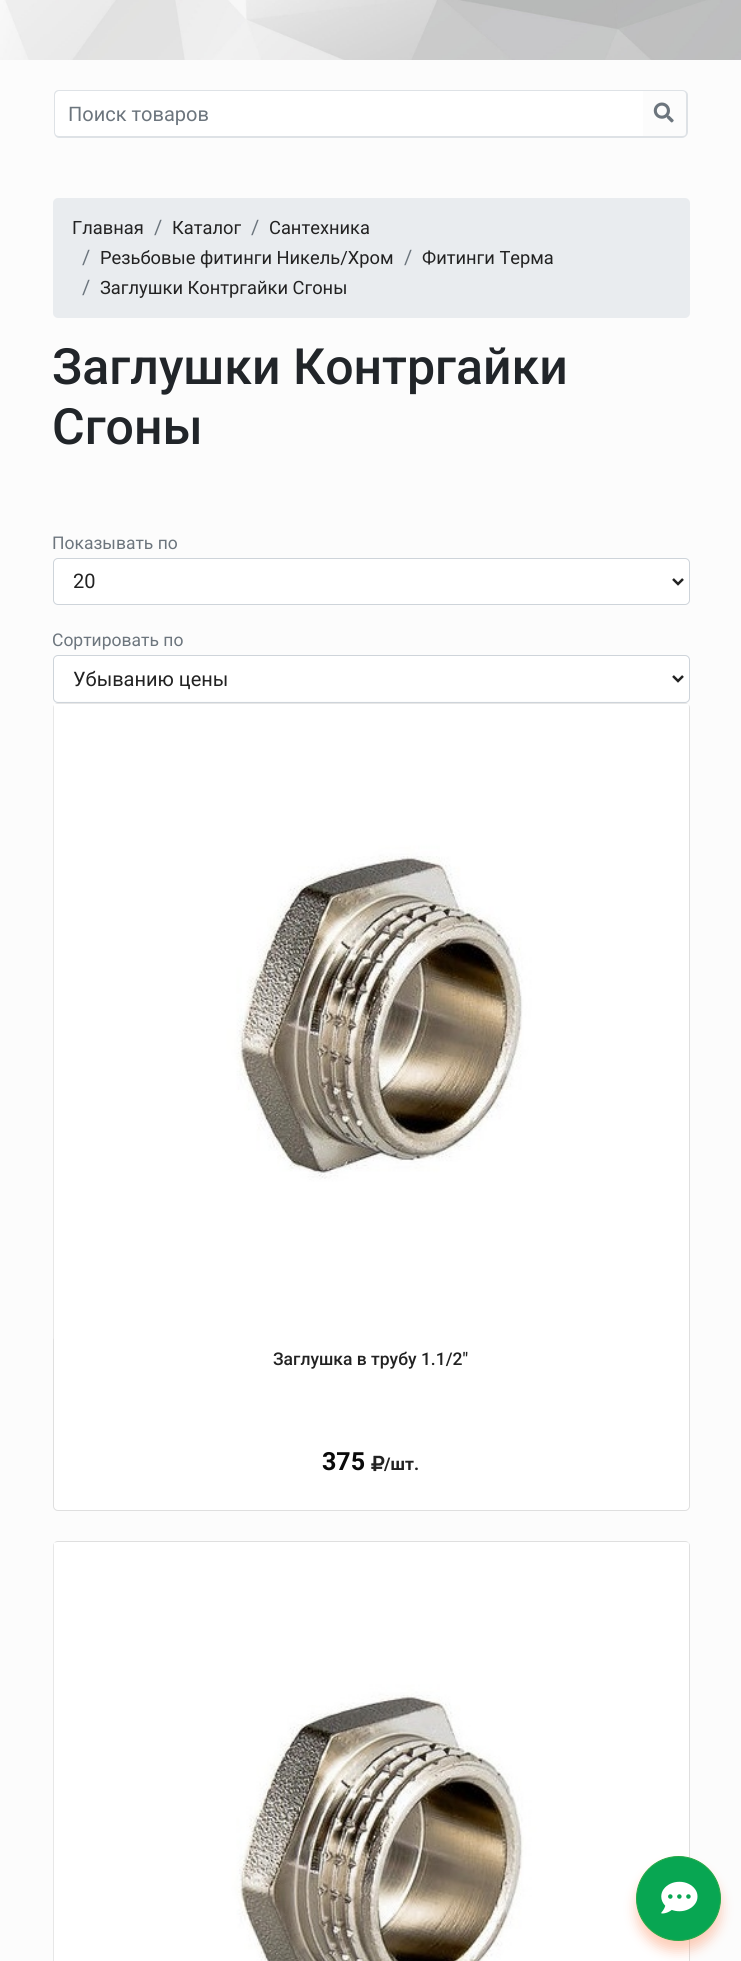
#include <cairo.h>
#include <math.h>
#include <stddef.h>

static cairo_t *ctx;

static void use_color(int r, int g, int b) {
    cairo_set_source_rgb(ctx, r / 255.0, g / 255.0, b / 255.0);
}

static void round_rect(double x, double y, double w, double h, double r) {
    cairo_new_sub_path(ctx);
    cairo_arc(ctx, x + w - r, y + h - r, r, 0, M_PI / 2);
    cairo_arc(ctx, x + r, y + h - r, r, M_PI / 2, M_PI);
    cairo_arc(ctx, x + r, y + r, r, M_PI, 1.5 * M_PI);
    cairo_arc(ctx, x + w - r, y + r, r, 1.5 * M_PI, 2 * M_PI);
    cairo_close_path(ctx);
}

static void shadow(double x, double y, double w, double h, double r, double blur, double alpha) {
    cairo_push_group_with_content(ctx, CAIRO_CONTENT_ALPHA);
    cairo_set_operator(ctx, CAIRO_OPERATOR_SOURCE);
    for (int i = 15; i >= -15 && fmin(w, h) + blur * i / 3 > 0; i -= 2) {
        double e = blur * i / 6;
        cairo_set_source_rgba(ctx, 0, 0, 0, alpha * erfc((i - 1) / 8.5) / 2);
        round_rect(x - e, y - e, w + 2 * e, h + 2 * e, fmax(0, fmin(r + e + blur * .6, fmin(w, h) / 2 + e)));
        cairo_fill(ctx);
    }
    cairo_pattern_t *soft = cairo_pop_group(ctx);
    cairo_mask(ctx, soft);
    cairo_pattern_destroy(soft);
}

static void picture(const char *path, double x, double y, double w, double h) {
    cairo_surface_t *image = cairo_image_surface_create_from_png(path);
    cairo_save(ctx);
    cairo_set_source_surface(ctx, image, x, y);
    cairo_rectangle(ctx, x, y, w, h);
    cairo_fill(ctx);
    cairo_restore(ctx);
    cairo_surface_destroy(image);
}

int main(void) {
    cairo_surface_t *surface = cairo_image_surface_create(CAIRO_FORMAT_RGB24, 741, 1961);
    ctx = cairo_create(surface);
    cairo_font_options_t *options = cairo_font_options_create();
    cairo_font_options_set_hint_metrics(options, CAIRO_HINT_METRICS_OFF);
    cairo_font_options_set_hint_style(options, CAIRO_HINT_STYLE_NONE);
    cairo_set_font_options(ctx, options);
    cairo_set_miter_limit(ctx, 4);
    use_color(252, 252, 252);
    cairo_paint(ctx);
    picture("img1.png", 0, 0, 741, 60);
    use_color(255, 255, 255);
    cairo_new_path(ctx);
    cairo_move_to(ctx, 59, 91);
    cairo_line_to(ctx, 643, 91);
    cairo_line_to(ctx, 643, 136);
    cairo_line_to(ctx, 59, 136);
    cairo_curve_to(ctx, 57, 136, 55, 134, 55, 132);
    cairo_line_to(ctx, 55, 95);
    cairo_curve_to(ctx, 55, 93, 57, 91, 59, 91);
    cairo_close_path(ctx);
    cairo_fill(ctx);
    use_color(222, 226, 230);
    cairo_set_fill_rule(ctx, CAIRO_FILL_RULE_EVEN_ODD);
    cairo_new_path(ctx);
    cairo_move_to(ctx, 59, 90);
    cairo_line_to(ctx, 642, 90);
    cairo_line_to(ctx, 642, 138);
    cairo_line_to(ctx, 59, 138);
    cairo_curve_to(ctx, 56, 138, 54, 135, 54, 132);
    cairo_line_to(ctx, 54, 95);
    cairo_curve_to(ctx, 54, 92, 56, 90, 59, 90);
    cairo_close_path(ctx);
    cairo_move_to(ctx, 59, 91);
    cairo_line_to(ctx, 642, 91);
    cairo_line_to(ctx, 642, 136);
    cairo_line_to(ctx, 59, 136);
    cairo_curve_to(ctx, 57, 136, 55, 135, 55, 132);
    cairo_line_to(ctx, 55, 95);
    cairo_curve_to(ctx, 55, 93, 57, 91, 59, 91);
    cairo_close_path(ctx);
    cairo_fill(ctx);
    cairo_select_font_face(ctx, "Roboto", CAIRO_FONT_SLANT_NORMAL, CAIRO_FONT_WEIGHT_NORMAL);
    cairo_set_font_size(ctx, 20);
    use_color(108, 117, 125);
    cairo_move_to(ctx, 68, 121);
    cairo_show_text(ctx, "Поиск товаров");
    use_color(222, 226, 230);
    cairo_new_path(ctx);
    cairo_move_to(ctx, 641, 90);
    cairo_line_to(ctx, 682, 90);
    cairo_curve_to(ctx, 685, 90, 688, 92, 688, 95);
    cairo_line_to(ctx, 688, 132);
    cairo_curve_to(ctx, 688, 135, 685, 138, 682, 138);
    cairo_line_to(ctx, 641, 138);
    cairo_close_path(ctx);
    cairo_move_to(ctx, 641, 91);
    cairo_line_to(ctx, 682, 91);
    cairo_curve_to(ctx, 685, 91, 686, 93, 686, 95);
    cairo_line_to(ctx, 686, 132);
    cairo_curve_to(ctx, 686, 135, 685, 136, 682, 136);
    cairo_line_to(ctx, 641, 136);
    cairo_close_path(ctx);
    cairo_fill(ctx);
    picture("img2.png", 653, 102, 21, 21);
    use_color(233, 236, 239);
    round_rect(53, 198, 637, 120, 5);
    cairo_fill(ctx);
    cairo_set_font_size(ctx, 18.3);
    use_color(34, 34, 34);
    cairo_move_to(ctx, 72, 234);
    cairo_show_text(ctx, "Главная");
    cairo_set_font_size(ctx, 20);
    use_color(108, 117, 125);
    cairo_move_to(ctx, 154, 234);
    cairo_show_text(ctx, "/");
    cairo_set_font_size(ctx, 18.3);
    use_color(34, 34, 34);
    cairo_move_to(ctx, 172, 234);
    cairo_show_text(ctx, "Каталог");
    cairo_set_font_size(ctx, 20);
    use_color(108, 117, 125);
    cairo_move_to(ctx, 251, 234);
    cairo_show_text(ctx, "/");
    cairo_set_font_size(ctx, 18.3);
    use_color(34, 34, 34);
    cairo_move_to(ctx, 269, 234);
    cairo_show_text(ctx, "Сантехника");
    cairo_set_font_size(ctx, 20);
    use_color(108, 117, 125);
    cairo_move_to(ctx, 82, 264);
    cairo_show_text(ctx, "/");
    cairo_set_font_size(ctx, 18.3);
    use_color(34, 34, 34);
    cairo_move_to(ctx, 100, 264);
    cairo_show_text(ctx, "Резьбовые фитинги Никель/Хром");
    cairo_set_font_size(ctx, 20);
    use_color(108, 117, 125);
    cairo_move_to(ctx, 404, 264);
    cairo_show_text(ctx, "/");
    cairo_set_font_size(ctx, 18.3);
    use_color(34, 34, 34);
    cairo_move_to(ctx, 422, 264);
    cairo_show_text(ctx, "Фитинги Терма");
    cairo_set_font_size(ctx, 20);
    use_color(108, 117, 125);
    cairo_move_to(ctx, 82, 294);
    cairo_show_text(ctx, "/");
    cairo_set_font_size(ctx, 18.3);
    use_color(34, 34, 34);
    cairo_move_to(ctx, 100, 294);
    cairo_show_text(ctx, "Заглушки Контргайки Сгоны");
    cairo_select_font_face(ctx, "Roboto Medium", CAIRO_FONT_SLANT_NORMAL, CAIRO_FONT_WEIGHT_NORMAL);
    cairo_set_font_size(ctx, 50);
    use_color(33, 37, 41);
    cairo_move_to(ctx, 52, 384);
    cairo_show_text(ctx, "Заглушки Контргайки");
    cairo_move_to(ctx, 52, 444);
    cairo_show_text(ctx, "Сгоны");
    cairo_select_font_face(ctx, "Roboto", CAIRO_FONT_SLANT_NORMAL, CAIRO_FONT_WEIGHT_NORMAL);
    cairo_set_font_size(ctx, 17.5);
    use_color(108, 117, 125);
    cairo_move_to(ctx, 52, 549);
    cairo_show_text(ctx, "Показывать по");
    use_color(255, 255, 255);
    round_rect(53.5, 558.5, 636, 46, 4.5);
    cairo_fill_preserve(ctx);
    use_color(206, 212, 218);
    cairo_set_line_width(ctx, 1);
    cairo_stroke(ctx);
    cairo_new_path(ctx);
    cairo_move_to(ctx, 673, 579);
    cairo_line_to(ctx, 678, 584);
    cairo_line_to(ctx, 683, 579);
    use_color(34, 34, 34);
    cairo_set_line_width(ctx, 2.5);
    cairo_stroke(ctx);
    cairo_set_font_size(ctx, 20);
    cairo_move_to(ctx, 73, 588);
    cairo_show_text(ctx, "20");
    cairo_set_font_size(ctx, 17.5);
    use_color(108, 117, 125);
    cairo_move_to(ctx, 52, 646);
    cairo_show_text(ctx, "Сортировать по");
    use_color(255, 255, 255);
    round_rect(54, 656, 635, 45, 4);
    cairo_fill(ctx);
    round_rect(53.5, 655.5, 636, 47, 4.5);
    use_color(206, 212, 218);
    cairo_set_line_width(ctx, 1);
    cairo_stroke(ctx);
    cairo_new_path(ctx);
    cairo_move_to(ctx, 673, 676);
    cairo_line_to(ctx, 678, 681);
    cairo_line_to(ctx, 683, 676);
    use_color(34, 34, 34);
    cairo_set_line_width(ctx, 2.5);
    cairo_stroke(ctx);
    cairo_set_font_size(ctx, 20);
    cairo_move_to(ctx, 73, 686);
    cairo_show_text(ctx, "Убыванию цены");
    use_color(255, 255, 255);
    round_rect(53.5, 703.5, 636, 807, 4.5);
    cairo_fill_preserve(ctx);
    use_color(223, 223, 223);
    cairo_set_line_width(ctx, 1);
    cairo_stroke(ctx);
    picture("img3.png", 53, 703, 636, 636);
    cairo_select_font_face(ctx, "Roboto Medium", CAIRO_FONT_SLANT_NORMAL, CAIRO_FONT_WEIGHT_NORMAL);
    cairo_set_font_size(ctx, 17.5);
    use_color(34, 34, 34);
    cairo_move_to(ctx, 273, 1365);
    cairo_show_text(ctx, "Заглушка в трубу 1.1/2\"");
    cairo_select_font_face(ctx, "Roboto", CAIRO_FONT_SLANT_NORMAL, CAIRO_FONT_WEIGHT_BOLD);
    cairo_set_font_size(ctx, 25);
    use_color(10, 10, 10);
    cairo_move_to(ctx, 322, 1470);
    cairo_show_text(ctx, "375");
    picture("img4.png", 371, 1455, 14, 17);
    cairo_set_font_size(ctx, 17.5);
    use_color(34, 34, 34);
    cairo_move_to(ctx, 384, 1470);
    cairo_show_text(ctx, "/шт.");
    use_color(255, 255, 255);
    round_rect(53.5, 1541.5, 636, 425, 4.5);
    cairo_fill_preserve(ctx);
    use_color(223, 223, 223);
    cairo_stroke(ctx);
    picture("img5.png", 53, 1542, 636, 419);
    use_color(249, 92, 24);
    shadow(636, 1866, 85, 85, 42.5, 6, 0.3);
    use_color(8, 166, 82);
    cairo_arc(ctx, 678.5, 1898.5, 42, 0, 2 * M_PI);
    cairo_fill_preserve(ctx);
    use_color(40, 167, 69);
    cairo_stroke(ctx);
    picture("img6.png", 661, 1881, 37, 33);
    cairo_surface_write_to_png(surface, "result.png");
    cairo_font_options_destroy(options);
    cairo_destroy(ctx);
    cairo_surface_destroy(surface);
    return 0;
}
